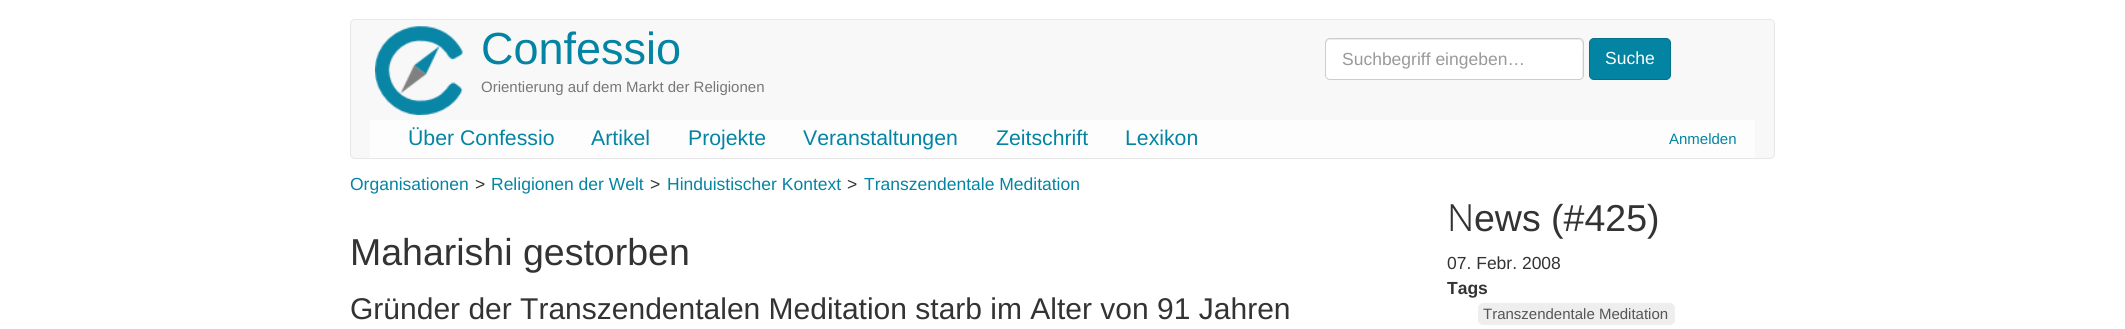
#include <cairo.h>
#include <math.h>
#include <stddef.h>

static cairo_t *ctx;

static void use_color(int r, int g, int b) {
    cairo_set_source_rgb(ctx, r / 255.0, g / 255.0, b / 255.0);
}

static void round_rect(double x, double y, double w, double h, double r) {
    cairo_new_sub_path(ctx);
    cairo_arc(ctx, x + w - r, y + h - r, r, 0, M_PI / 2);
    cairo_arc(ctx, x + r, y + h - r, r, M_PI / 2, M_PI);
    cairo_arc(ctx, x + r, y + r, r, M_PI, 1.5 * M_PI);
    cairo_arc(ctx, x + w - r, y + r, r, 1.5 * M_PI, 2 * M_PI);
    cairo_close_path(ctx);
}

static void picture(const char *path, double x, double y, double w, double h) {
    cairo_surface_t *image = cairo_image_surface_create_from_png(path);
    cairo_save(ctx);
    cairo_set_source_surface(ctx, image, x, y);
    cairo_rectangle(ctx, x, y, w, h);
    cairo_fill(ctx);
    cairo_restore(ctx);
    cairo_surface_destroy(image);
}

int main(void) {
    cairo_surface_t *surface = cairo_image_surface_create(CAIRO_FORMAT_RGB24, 2125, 329);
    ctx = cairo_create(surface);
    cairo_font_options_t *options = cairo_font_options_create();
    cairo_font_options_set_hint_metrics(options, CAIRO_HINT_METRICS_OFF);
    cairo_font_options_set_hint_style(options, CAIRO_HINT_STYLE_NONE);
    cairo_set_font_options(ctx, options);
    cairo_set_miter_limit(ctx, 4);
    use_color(255, 255, 255);
    cairo_paint(ctx);
    use_color(248, 248, 248);
    round_rect(350.5, 19.5, 1424, 139, 4.5);
    cairo_fill_preserve(ctx);
    use_color(231, 231, 231);
    cairo_set_line_width(ctx, 1);
    cairo_stroke(ctx);
    picture("img1.png", 375, 26, 88, 89);
    cairo_select_font_face(ctx, "Liberation Sans", CAIRO_FONT_SLANT_NORMAL, CAIRO_FONT_WEIGHT_NORMAL);
    cairo_set_font_size(ctx, 45);
    use_color(3, 132, 163);
    cairo_move_to(ctx, 481, 64);
    cairo_show_text(ctx, "Confessio");
    cairo_set_font_size(ctx, 15);
    use_color(119, 119, 119);
    cairo_move_to(ctx, 481, 92);
    cairo_show_text(ctx, "Orientierung auf dem Markt der Religionen");
    use_color(255, 255, 255);
    round_rect(1325, 38, 259, 42, 5);
    cairo_fill(ctx);
    use_color(236, 236, 236);
    cairo_new_path(ctx);
    cairo_move_to(ctx, 1330, 40);
    cairo_line_to(ctx, 1579, 40);
    cairo_curve_to(ctx, 1584, 40, 1582, 53, 1582, 55);
    cairo_line_to(ctx, 1582, 78);
    cairo_curve_to(ctx, 1582, 77, 1583, 76, 1583, 75);
    cairo_line_to(ctx, 1583, 43);
    cairo_curve_to(ctx, 1583, 41, 1581, 39, 1579, 39);
    cairo_line_to(ctx, 1330, 39);
    cairo_curve_to(ctx, 1328, 39, 1326, 41, 1326, 43);
    cairo_line_to(ctx, 1326, 44);
    cairo_curve_to(ctx, 1326, 42, 1328, 40, 1330, 40);
    cairo_close_path(ctx);
    cairo_fill(ctx);
    round_rect(1325.5, 38.5, 258, 41, 4.5);
    use_color(204, 204, 204);
    cairo_stroke(ctx);
    cairo_set_font_size(ctx, 17.5);
    use_color(153, 153, 153);
    cairo_move_to(ctx, 1342, 65);
    cairo_show_text(ctx, "Suchbegriff eingeben…");
    use_color(3, 132, 163);
    round_rect(1589.5, 38.5, 81, 41, 4.5);
    cairo_fill_preserve(ctx);
    use_color(3, 112, 138);
    cairo_stroke(ctx);
    use_color(255, 255, 255);
    cairo_move_to(ctx, 1605, 64);
    cairo_show_text(ctx, "Suche");
    use_color(253, 253, 253);
    cairo_rectangle(ctx, 370, 120, 1385, 38);
    cairo_fill(ctx);
    cairo_set_font_size(ctx, 21.25);
    use_color(3, 132, 163);
    cairo_move_to(ctx, 408, 145);
    cairo_show_text(ctx, "Über Confessio");
    cairo_move_to(ctx, 591, 145);
    cairo_show_text(ctx, "Artikel");
    cairo_move_to(ctx, 688, 145);
    cairo_show_text(ctx, "Projekte");
    cairo_move_to(ctx, 803, 145);
    cairo_show_text(ctx, "Veranstaltungen");
    cairo_move_to(ctx, 996, 145);
    cairo_show_text(ctx, "Zeitschrift");
    cairo_move_to(ctx, 1125, 145);
    cairo_show_text(ctx, "Lexikon");
    cairo_set_font_size(ctx, 15);
    cairo_move_to(ctx, 1669, 144);
    cairo_show_text(ctx, "Anmelden");
    cairo_set_font_size(ctx, 17.5);
    cairo_move_to(ctx, 350, 190);
    cairo_show_text(ctx, "Organisationen");
    use_color(51, 51, 51);
    cairo_move_to(ctx, 475, 190);
    cairo_show_text(ctx, ">");
    use_color(3, 132, 163);
    cairo_move_to(ctx, 491, 190);
    cairo_show_text(ctx, "Religionen der Welt");
    use_color(51, 51, 51);
    cairo_move_to(ctx, 650, 190);
    cairo_show_text(ctx, ">");
    use_color(3, 132, 163);
    cairo_move_to(ctx, 667, 190);
    cairo_show_text(ctx, "Hinduistischer Kontext");
    use_color(51, 51, 51);
    cairo_move_to(ctx, 847, 190);
    cairo_show_text(ctx, ">");
    use_color(3, 132, 163);
    cairo_move_to(ctx, 864, 190);
    cairo_show_text(ctx, "Transzendentale Meditation");
    cairo_set_font_size(ctx, 37.5);
    use_color(51, 51, 51);
    cairo_move_to(ctx, 350, 265);
    cairo_show_text(ctx, "Maharishi gestorben");
    cairo_set_font_size(ctx, 30);
    cairo_move_to(ctx, 350, 319);
    cairo_show_text(ctx, "Gründer der Transzendentalen Meditation starb im Alter von 91 Jahren");
    cairo_select_font_face(ctx, "Noto Sans Light", CAIRO_FONT_SLANT_NORMAL, CAIRO_FONT_WEIGHT_NORMAL);
    cairo_set_font_size(ctx, 37.5);
    cairo_move_to(ctx, 1447, 231);
    cairo_show_text(ctx, "N");
    cairo_select_font_face(ctx, "Liberation Sans", CAIRO_FONT_SLANT_NORMAL, CAIRO_FONT_WEIGHT_NORMAL);
    cairo_move_to(ctx, 1474, 231);
    cairo_show_text(ctx, "ews (#425)");
    cairo_set_font_size(ctx, 17.5);
    cairo_move_to(ctx, 1447, 269);
    cairo_show_text(ctx, "07. Febr. 2008");
    cairo_select_font_face(ctx, "Liberation Sans", CAIRO_FONT_SLANT_NORMAL, CAIRO_FONT_WEIGHT_BOLD);
    cairo_move_to(ctx, 1447, 294);
    cairo_show_text(ctx, "Tags");
    use_color(238, 238, 238);
    round_rect(1478, 303, 197, 22, 5);
    cairo_fill(ctx);
    cairo_select_font_face(ctx, "Liberation Sans", CAIRO_FONT_SLANT_NORMAL, CAIRO_FONT_WEIGHT_NORMAL);
    cairo_set_font_size(ctx, 15);
    use_color(85, 85, 85);
    cairo_move_to(ctx, 1483, 319);
    cairo_show_text(ctx, "Transzendentale Meditation");
    cairo_surface_write_to_png(surface, "result.png");
    cairo_font_options_destroy(options);
    cairo_destroy(ctx);
    cairo_surface_destroy(surface);
    return 0;
}
